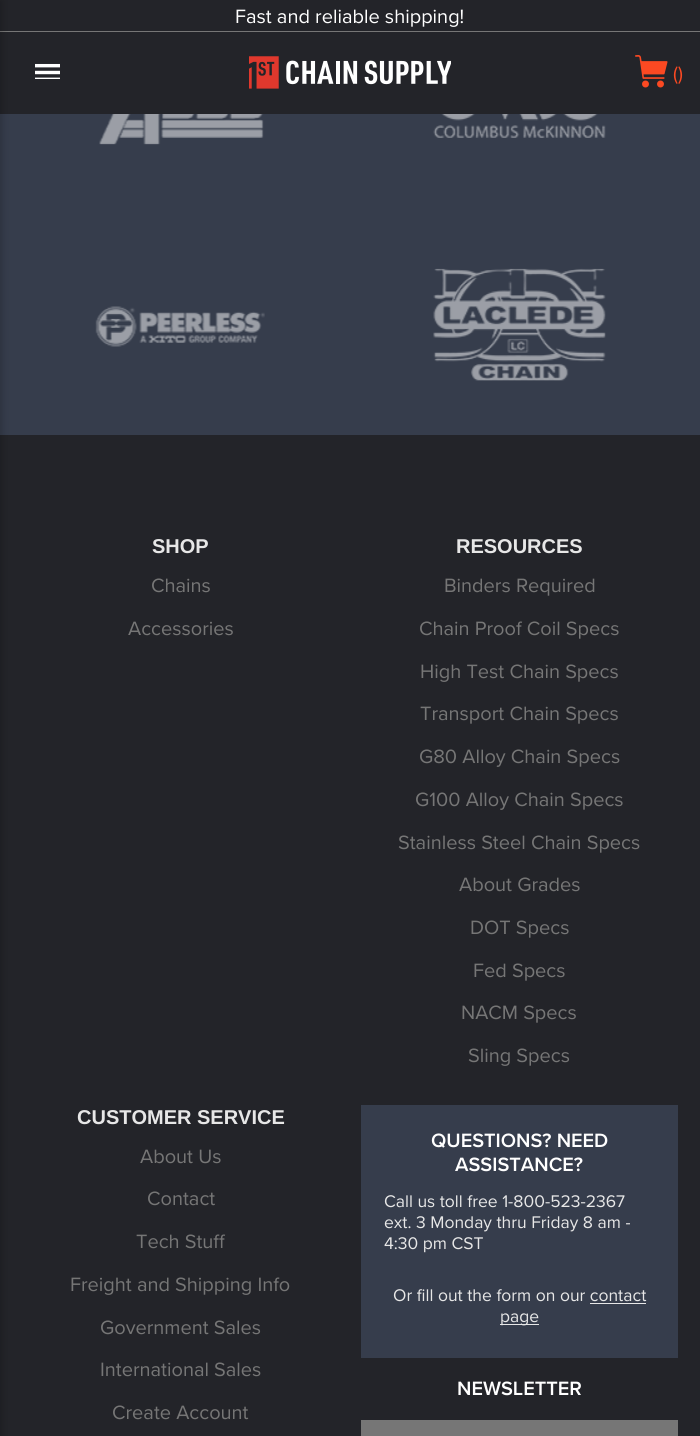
#include <cairo.h>
#include <math.h>
#include <stddef.h>

static cairo_t *ctx;

static void use_color(int r, int g, int b) {
    cairo_set_source_rgb(ctx, r / 255.0, g / 255.0, b / 255.0);
}

static void round_rect(double x, double y, double w, double h, double r) {
    cairo_new_sub_path(ctx);
    cairo_arc(ctx, x + w - r, y + h - r, r, 0, M_PI / 2);
    cairo_arc(ctx, x + r, y + h - r, r, M_PI / 2, M_PI);
    cairo_arc(ctx, x + r, y + r, r, M_PI, 1.5 * M_PI);
    cairo_arc(ctx, x + w - r, y + r, r, 1.5 * M_PI, 2 * M_PI);
    cairo_close_path(ctx);
}

static void shadow(double x, double y, double w, double h, double r, double blur, double alpha) {
    cairo_push_group_with_content(ctx, CAIRO_CONTENT_ALPHA);
    cairo_set_operator(ctx, CAIRO_OPERATOR_SOURCE);
    for (int i = 15; i >= -15 && fmin(w, h) + blur * i / 3 > 0; i -= 2) {
        double e = blur * i / 6;
        cairo_set_source_rgba(ctx, 0, 0, 0, alpha * erfc((i - 1) / 8.5) / 2);
        round_rect(x - e, y - e, w + 2 * e, h + 2 * e, fmax(0, fmin(r + e + blur * .6, fmin(w, h) / 2 + e)));
        cairo_fill(ctx);
    }
    cairo_pattern_t *soft = cairo_pop_group(ctx);
    cairo_mask(ctx, soft);
    cairo_pattern_destroy(soft);
}

static void picture(const char *path, double x, double y, double w, double h) {
    cairo_surface_t *image = cairo_image_surface_create_from_png(path);
    cairo_save(ctx);
    cairo_set_source_surface(ctx, image, x, y);
    cairo_rectangle(ctx, x, y, w, h);
    cairo_fill(ctx);
    cairo_restore(ctx);
    cairo_surface_destroy(image);
}

int main(void) {
    cairo_surface_t *surface = cairo_image_surface_create(CAIRO_FORMAT_RGB24, 700, 1436);
    ctx = cairo_create(surface);
    cairo_font_options_t *options = cairo_font_options_create();
    cairo_font_options_set_hint_metrics(options, CAIRO_HINT_METRICS_OFF);
    cairo_font_options_set_hint_style(options, CAIRO_HINT_STYLE_NONE);
    cairo_set_font_options(ctx, options);
    cairo_set_miter_limit(ctx, 4);
    use_color(54, 61, 76);
    cairo_paint(ctx);
    use_color(35, 36, 41);
    cairo_rectangle(ctx, 0, 0, 700, 114);
    cairo_fill(ctx);
    use_color(118, 118, 118);
    cairo_rectangle(ctx, 0, 31, 700, 1);
    cairo_fill(ctx);
    use_color(35, 36, 41);
    cairo_rectangle(ctx, 0, 435, 700, 1001);
    cairo_fill(ctx);
    use_color(0, 0, 0);
    shadow(-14, 1, 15, 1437, 0, 4.5, 0.25);
    cairo_select_font_face(ctx, "Proxima Nova", CAIRO_FONT_SLANT_NORMAL, CAIRO_FONT_WEIGHT_NORMAL);
    cairo_set_font_size(ctx, 20);
    use_color(255, 255, 255);
    cairo_move_to(ctx, 235, 23);
    cairo_show_text(ctx, "Fast and reliable shipping!");
    picture("img1.png", 35, 63, 25, 16);
    picture("img2.png", 249, 56, 202, 33);
    picture("img3.png", 635, 55, 33, 33);
    use_color(251, 73, 34);
    cairo_move_to(ctx, 673, 80);
    cairo_show_text(ctx, "()");
    picture("img4.png", 99, 114, 165, 31);
    picture("img5.png", 433, 114, 173, 24);
    picture("img6.png", 95, 306, 170, 41);
    picture("img7.png", 433, 268, 173, 113);
    cairo_select_font_face(ctx, "Liberation Sans", CAIRO_FONT_SLANT_NORMAL, CAIRO_FONT_WEIGHT_BOLD);
    use_color(231, 231, 231);
    cairo_move_to(ctx, 152, 553);
    cairo_show_text(ctx, "SHOP");
    cairo_select_font_face(ctx, "Proxima Nova", CAIRO_FONT_SLANT_NORMAL, CAIRO_FONT_WEIGHT_NORMAL);
    use_color(118, 118, 118);
    cairo_move_to(ctx, 151, 592);
    cairo_show_text(ctx, "Chains");
    cairo_move_to(ctx, 128, 635);
    cairo_show_text(ctx, "Accessories");
    cairo_select_font_face(ctx, "Liberation Sans", CAIRO_FONT_SLANT_NORMAL, CAIRO_FONT_WEIGHT_BOLD);
    use_color(231, 231, 231);
    cairo_move_to(ctx, 456, 553);
    cairo_show_text(ctx, "RESOURCES");
    cairo_select_font_face(ctx, "Proxima Nova", CAIRO_FONT_SLANT_NORMAL, CAIRO_FONT_WEIGHT_NORMAL);
    use_color(118, 118, 118);
    cairo_move_to(ctx, 444, 592);
    cairo_show_text(ctx, "Binders Required");
    cairo_move_to(ctx, 419, 635);
    cairo_show_text(ctx, "Chain Proof Coil Specs");
    cairo_move_to(ctx, 420, 678);
    cairo_show_text(ctx, "High Test Chain Specs");
    cairo_move_to(ctx, 420, 720);
    cairo_show_text(ctx, "Transport Chain Specs");
    cairo_move_to(ctx, 419, 763);
    cairo_show_text(ctx, "G80 Alloy Chain Specs");
    cairo_move_to(ctx, 415, 806);
    cairo_show_text(ctx, "G100 Alloy Chain Specs");
    cairo_move_to(ctx, 398, 849);
    cairo_show_text(ctx, "Stainless Steel Chain Specs");
    cairo_move_to(ctx, 459, 891);
    cairo_show_text(ctx, "About Grades");
    cairo_move_to(ctx, 470, 934);
    cairo_show_text(ctx, "DOT Specs");
    cairo_move_to(ctx, 473, 977);
    cairo_show_text(ctx, "Fed Specs");
    cairo_move_to(ctx, 461, 1019);
    cairo_show_text(ctx, "NACM Specs");
    cairo_move_to(ctx, 468, 1062);
    cairo_show_text(ctx, "Sling Specs");
    cairo_select_font_face(ctx, "Liberation Sans", CAIRO_FONT_SLANT_NORMAL, CAIRO_FONT_WEIGHT_BOLD);
    use_color(231, 231, 231);
    cairo_move_to(ctx, 77, 1124);
    cairo_show_text(ctx, "CUSTOMER SERVICE");
    cairo_select_font_face(ctx, "Proxima Nova", CAIRO_FONT_SLANT_NORMAL, CAIRO_FONT_WEIGHT_NORMAL);
    use_color(118, 118, 118);
    cairo_move_to(ctx, 140, 1163);
    cairo_show_text(ctx, "About Us");
    cairo_move_to(ctx, 147, 1205);
    cairo_show_text(ctx, "Contact");
    cairo_move_to(ctx, 136, 1248);
    cairo_show_text(ctx, "Tech Stuff");
    cairo_move_to(ctx, 70, 1291);
    cairo_show_text(ctx, "Freight and Shipping Info");
    cairo_move_to(ctx, 100, 1334);
    cairo_show_text(ctx, "Government Sales");
    cairo_move_to(ctx, 100, 1376);
    cairo_show_text(ctx, "International Sales");
    cairo_move_to(ctx, 112, 1419);
    cairo_show_text(ctx, "Create Account");
    use_color(54, 61, 76);
    cairo_rectangle(ctx, 361, 1105, 317, 253);
    cairo_fill(ctx);
    cairo_select_font_face(ctx, "Proxima Nova SemiBold", CAIRO_FONT_SLANT_NORMAL, CAIRO_FONT_WEIGHT_NORMAL);
    use_color(255, 255, 255);
    cairo_move_to(ctx, 431, 1147);
    cairo_show_text(ctx, "QUESTIONS? NEED");
    cairo_move_to(ctx, 455, 1171);
    cairo_show_text(ctx, "ASSISTANCE?");
    cairo_select_font_face(ctx, "Proxima Nova", CAIRO_FONT_SLANT_NORMAL, CAIRO_FONT_WEIGHT_NORMAL);
    cairo_set_font_size(ctx, 17.5);
    use_color(231, 231, 231);
    cairo_move_to(ctx, 384, 1207);
    cairo_show_text(ctx, "Call us toll free 1-800-523-2367");
    cairo_move_to(ctx, 384, 1228);
    cairo_show_text(ctx, "ext. 3 Monday thru Friday 8 am -");
    cairo_move_to(ctx, 384, 1249);
    cairo_show_text(ctx, "4:30 pm CST");
    cairo_move_to(ctx, 393, 1301);
    cairo_show_text(ctx, "Or fill out the form on our contact");
    cairo_rectangle(ctx, 500, 1324, 39, 1);
    cairo_fill(ctx);
    cairo_move_to(ctx, 500, 1322);
    cairo_show_text(ctx, "page");
    cairo_rectangle(ctx, 590, 1303, 56, 1);
    cairo_fill(ctx);
    cairo_select_font_face(ctx, "Proxima Nova SemiBold", CAIRO_FONT_SLANT_NORMAL, CAIRO_FONT_WEIGHT_NORMAL);
    cairo_set_font_size(ctx, 20);
    use_color(255, 255, 255);
    cairo_move_to(ctx, 457, 1395);
    cairo_show_text(ctx, "NEWSLETTER");
    use_color(118, 118, 118);
    cairo_rectangle(ctx, 361, 1420, 317, 16);
    cairo_fill(ctx);
    cairo_surface_write_to_png(surface, "result.png");
    cairo_font_options_destroy(options);
    cairo_destroy(ctx);
    cairo_surface_destroy(surface);
    return 0;
}
